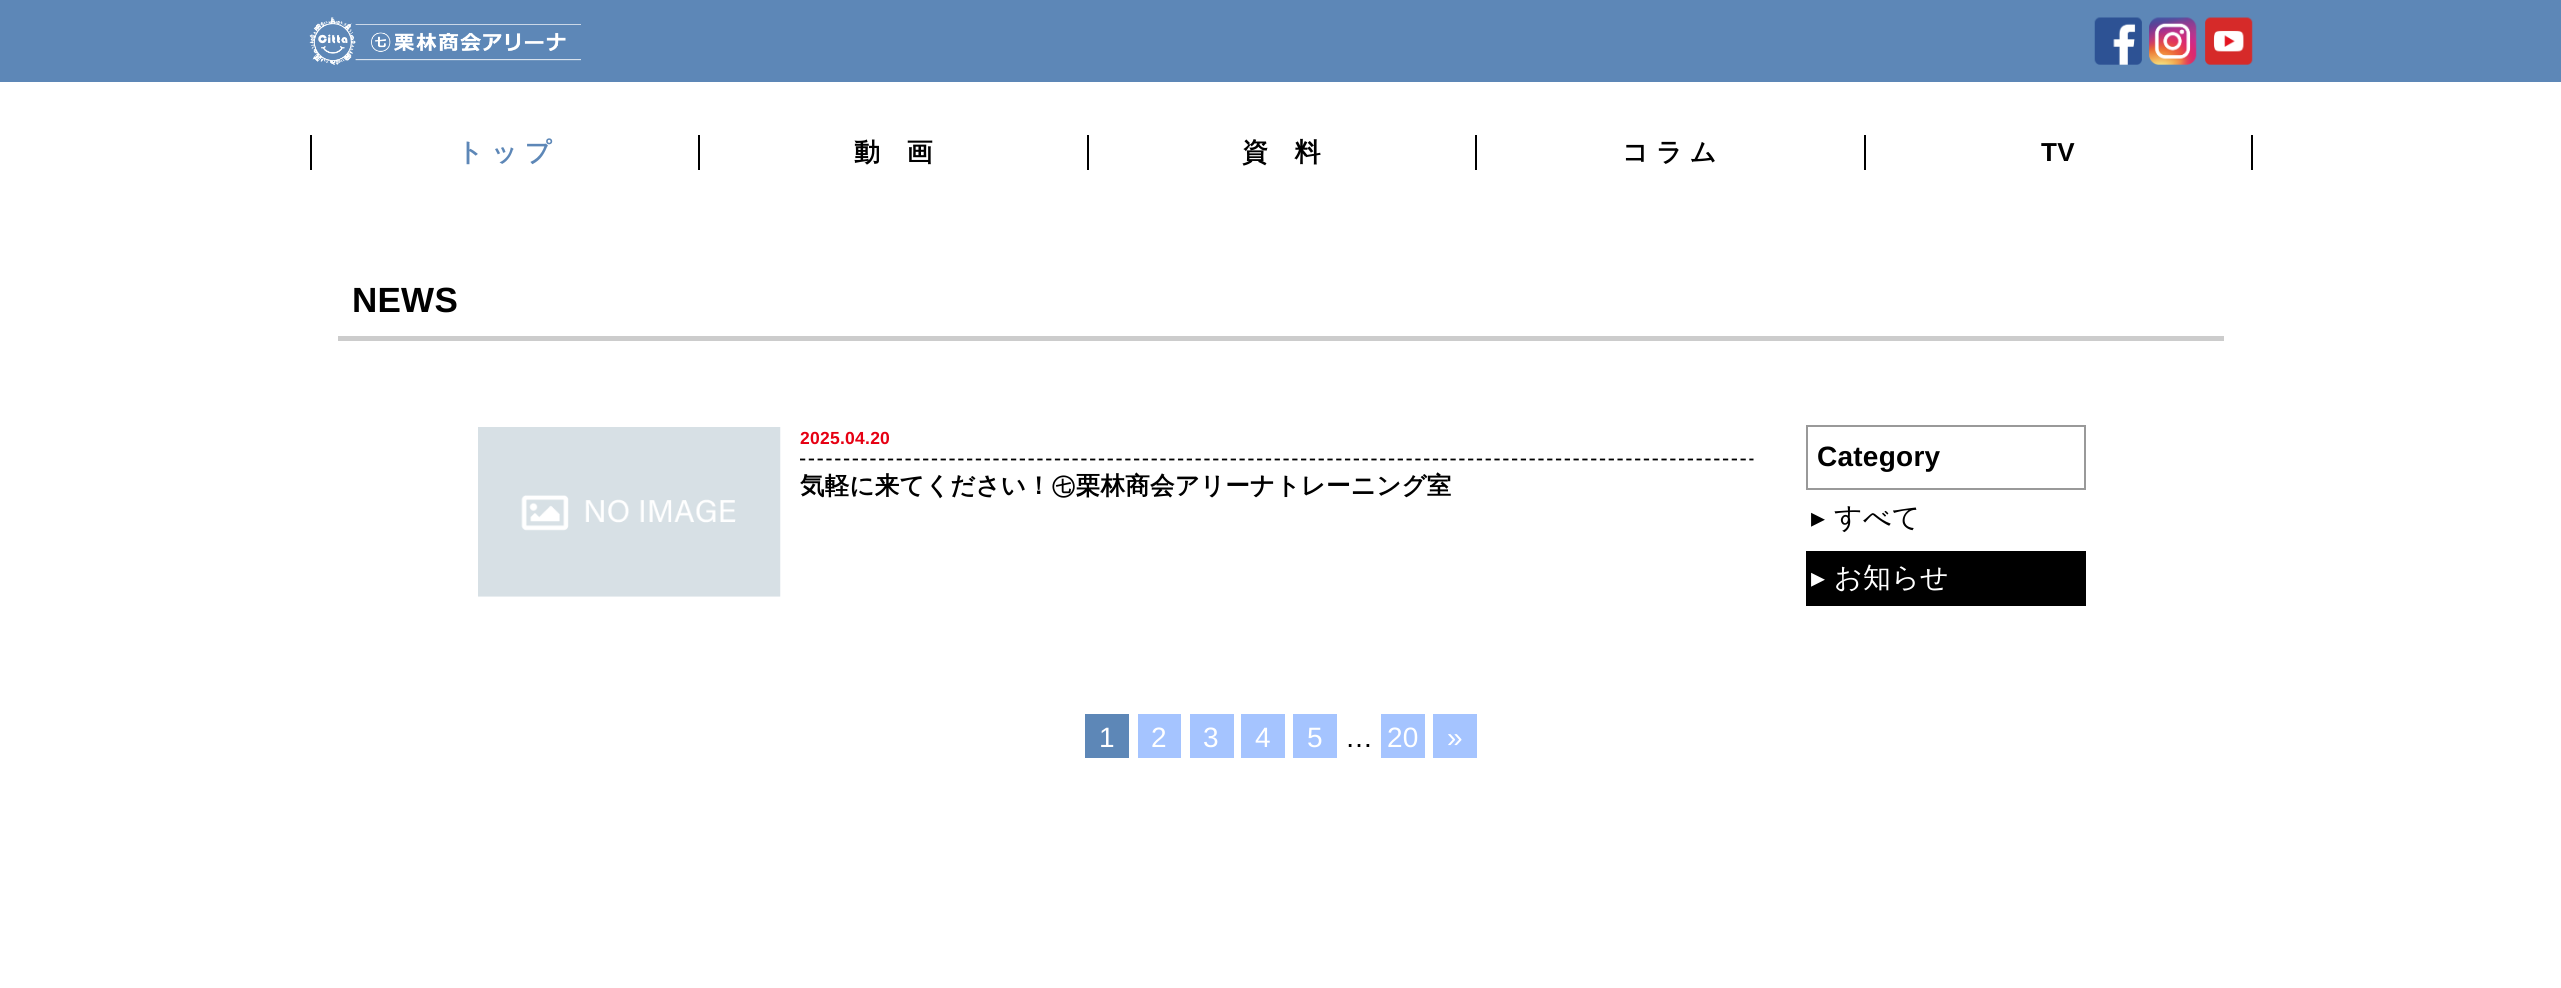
#include <cairo.h>
#include <math.h>
#include <stddef.h>

static cairo_t *ctx;

static void use_color(int r, int g, int b) {
    cairo_set_source_rgb(ctx, r / 255.0, g / 255.0, b / 255.0);
}

static void spaced_text(double x, double y, const char *s, double letter, double word) {
    cairo_move_to(ctx, x, y);
    while (*s) {
        char ch[5] = {0};
        int n = 0;
        do ch[n++] = *s++; while ((*s & 0xC0) == 0x80);
        cairo_show_text(ctx, ch);
        cairo_rel_move_to(ctx, letter + word * (*ch == ' '), 0);
    }
}

static void picture(const char *path, double x, double y, double w, double h) {
    cairo_surface_t *image = cairo_image_surface_create_from_png(path);
    cairo_save(ctx);
    cairo_set_source_surface(ctx, image, x, y);
    cairo_rectangle(ctx, x, y, w, h);
    cairo_fill(ctx);
    cairo_restore(ctx);
    cairo_surface_destroy(image);
}

int main(void) {
    cairo_surface_t *surface = cairo_image_surface_create(CAIRO_FORMAT_RGB24, 2561, 988);
    ctx = cairo_create(surface);
    cairo_font_options_t *options = cairo_font_options_create();
    cairo_font_options_set_hint_metrics(options, CAIRO_HINT_METRICS_OFF);
    cairo_font_options_set_hint_style(options, CAIRO_HINT_STYLE_NONE);
    cairo_set_font_options(ctx, options);
    cairo_set_miter_limit(ctx, 4);
    use_color(255, 255, 255);
    cairo_paint(ctx);
    use_color(93, 135, 183);
    cairo_rectangle(ctx, 0, 0, 2561, 82);
    cairo_fill(ctx);
    picture("img1.png", 309, 17, 272, 48);
    picture("img2.png", 2094, 17, 48, 48);
    picture("img3.png", 2149, 17, 48, 48);
    picture("img4.png", 2205, 17, 48, 48);
    use_color(0, 0, 0);
    cairo_rectangle(ctx, 310, 135, 2, 35);
    cairo_fill(ctx);
    cairo_select_font_face(ctx, "WenQuanYi Zen Hei", CAIRO_FONT_SLANT_NORMAL, CAIRO_FONT_WEIGHT_BOLD);
    cairo_set_font_size(ctx, 26);
    use_color(93, 135, 183);
    spaced_text(457, 161, "ト ッ プ", 0.25, -1);
    use_color(0, 0, 0);
    cairo_rectangle(ctx, 698, 135, 2, 35);
    cairo_fill(ctx);
    spaced_text(854, 161, "動　画", 0.25, 0);
    cairo_rectangle(ctx, 1087, 135, 2, 35);
    cairo_fill(ctx);
    spaced_text(1242, 161, "資　料", 0.25, 0);
    cairo_rectangle(ctx, 1475, 135, 2, 35);
    cairo_fill(ctx);
    spaced_text(1622, 161, "コ ラ ム", 0.25, -1);
    cairo_rectangle(ctx, 2251, 135, 2, 35);
    cairo_fill(ctx);
    cairo_rectangle(ctx, 1864, 135, 2, 35);
    cairo_fill(ctx);
    cairo_select_font_face(ctx, "Liberation Sans", CAIRO_FONT_SLANT_NORMAL, CAIRO_FONT_WEIGHT_BOLD);
    spaced_text(2041, 161, "TV", 0.25, 0);
    use_color(204, 204, 204);
    cairo_rectangle(ctx, 338, 336, 1886, 5);
    cairo_fill(ctx);
    cairo_set_font_size(ctx, 35);
    use_color(0, 0, 0);
    spaced_text(352, 312, "NEWS", 0.25, 0);
    picture("img5.png", 478, 427, 303, 170);
    cairo_set_font_size(ctx, 17.5);
    use_color(230, 0, 18);
    spaced_text(800, 444, "2025.04.20", 0.25, 0);
    cairo_new_path(ctx);
    cairo_move_to(ctx, 800, 459.5);
    cairo_line_to(ctx, 1753.5, 459.5);
    use_color(0, 0, 0);
    cairo_set_line_width(ctx, 1.8);
    cairo_set_dash(ctx, (double[]){5.25, 3.54}, 2, 0);
    cairo_stroke(ctx);
    cairo_select_font_face(ctx, "WenQuanYi Zen Hei", CAIRO_FONT_SLANT_NORMAL, CAIRO_FONT_WEIGHT_BOLD);
    cairo_set_font_size(ctx, 24.5);
    spaced_text(800, 494, "気軽に来てください！㊆栗林商会アリーナトレーニング室", 0.25, 0);
    cairo_rectangle(ctx, 1807, 426, 278, 63);
    use_color(153, 153, 153);
    cairo_set_line_width(ctx, 2);
    cairo_set_dash(ctx, NULL, 0, 0);
    cairo_stroke(ctx);
    cairo_select_font_face(ctx, "Liberation Sans", CAIRO_FONT_SLANT_NORMAL, CAIRO_FONT_WEIGHT_BOLD);
    cairo_set_font_size(ctx, 28);
    use_color(0, 0, 0);
    spaced_text(1817, 466, "Category", 0.25, 0);
    cairo_select_font_face(ctx, "DejaVu Sans", CAIRO_FONT_SLANT_NORMAL, CAIRO_FONT_WEIGHT_NORMAL);
    spaced_text(1811, 527, "▸", 0.25, 0);
    cairo_select_font_face(ctx, "WenQuanYi Zen Hei Medium", CAIRO_FONT_SLANT_NORMAL, CAIRO_FONT_WEIGHT_NORMAL);
    spaced_text(1834, 527, "すべて", 0.25, 0);
    cairo_rectangle(ctx, 1806, 551, 280, 55);
    cairo_fill(ctx);
    cairo_select_font_face(ctx, "DejaVu Sans", CAIRO_FONT_SLANT_NORMAL, CAIRO_FONT_WEIGHT_NORMAL);
    use_color(255, 255, 255);
    spaced_text(1811, 587, "▸", 0.25, 0);
    cairo_select_font_face(ctx, "WenQuanYi Zen Hei Medium", CAIRO_FONT_SLANT_NORMAL, CAIRO_FONT_WEIGHT_NORMAL);
    spaced_text(1834, 587, "お知らせ", 0.25, 0);
    use_color(93, 135, 183);
    cairo_rectangle(ctx, 1085, 714, 44, 44);
    cairo_fill(ctx);
    cairo_select_font_face(ctx, "Liberation Sans", CAIRO_FONT_SLANT_NORMAL, CAIRO_FONT_WEIGHT_NORMAL);
    use_color(255, 255, 255);
    spaced_text(1099, 747, "1", 0.25, 0);
    use_color(165, 196, 255);
    cairo_rectangle(ctx, 1138, 714, 43, 44);
    cairo_fill(ctx);
    use_color(255, 255, 255);
    spaced_text(1151, 747, "2", 0.25, 0);
    use_color(165, 196, 255);
    cairo_rectangle(ctx, 1190, 714, 44, 44);
    cairo_fill(ctx);
    use_color(255, 255, 255);
    spaced_text(1203, 747, "3", 0.25, 0);
    use_color(165, 196, 255);
    cairo_rectangle(ctx, 1241, 714, 44, 44);
    cairo_fill(ctx);
    use_color(255, 255, 255);
    spaced_text(1255, 747, "4", 0.25, 0);
    use_color(165, 196, 255);
    cairo_rectangle(ctx, 1293, 714, 44, 44);
    cairo_fill(ctx);
    use_color(255, 255, 255);
    spaced_text(1307, 747, "5", 0.25, 0);
    use_color(0, 0, 0);
    spaced_text(1345, 747, "…", 0.25, 0);
    use_color(165, 196, 255);
    cairo_rectangle(ctx, 1381, 714, 44, 44);
    cairo_fill(ctx);
    use_color(255, 255, 255);
    spaced_text(1387, 747, "20", 0.25, 0);
    use_color(165, 196, 255);
    cairo_rectangle(ctx, 1433, 714, 44, 44);
    cairo_fill(ctx);
    use_color(255, 255, 255);
    spaced_text(1447, 747, "»", 0.25, 0);
    cairo_surface_write_to_png(surface, "result.png");
    cairo_font_options_destroy(options);
    cairo_destroy(ctx);
    cairo_surface_destroy(surface);
    return 0;
}
